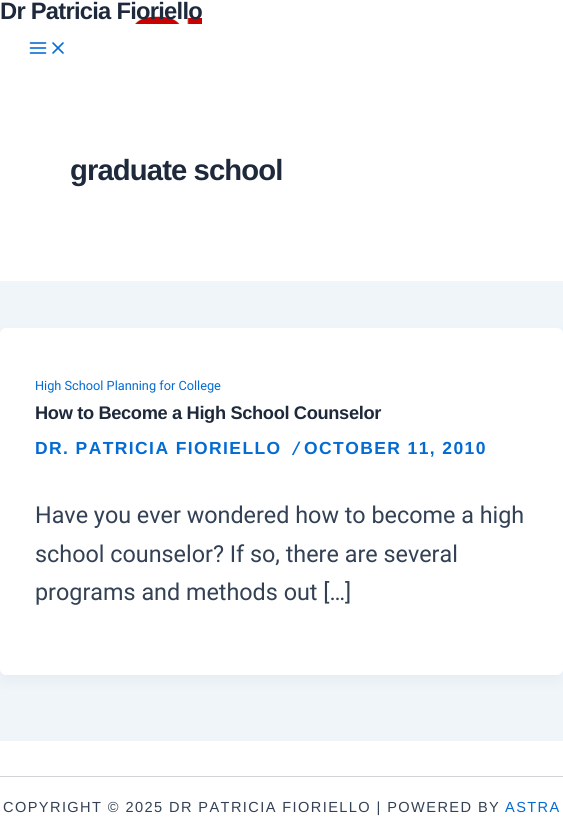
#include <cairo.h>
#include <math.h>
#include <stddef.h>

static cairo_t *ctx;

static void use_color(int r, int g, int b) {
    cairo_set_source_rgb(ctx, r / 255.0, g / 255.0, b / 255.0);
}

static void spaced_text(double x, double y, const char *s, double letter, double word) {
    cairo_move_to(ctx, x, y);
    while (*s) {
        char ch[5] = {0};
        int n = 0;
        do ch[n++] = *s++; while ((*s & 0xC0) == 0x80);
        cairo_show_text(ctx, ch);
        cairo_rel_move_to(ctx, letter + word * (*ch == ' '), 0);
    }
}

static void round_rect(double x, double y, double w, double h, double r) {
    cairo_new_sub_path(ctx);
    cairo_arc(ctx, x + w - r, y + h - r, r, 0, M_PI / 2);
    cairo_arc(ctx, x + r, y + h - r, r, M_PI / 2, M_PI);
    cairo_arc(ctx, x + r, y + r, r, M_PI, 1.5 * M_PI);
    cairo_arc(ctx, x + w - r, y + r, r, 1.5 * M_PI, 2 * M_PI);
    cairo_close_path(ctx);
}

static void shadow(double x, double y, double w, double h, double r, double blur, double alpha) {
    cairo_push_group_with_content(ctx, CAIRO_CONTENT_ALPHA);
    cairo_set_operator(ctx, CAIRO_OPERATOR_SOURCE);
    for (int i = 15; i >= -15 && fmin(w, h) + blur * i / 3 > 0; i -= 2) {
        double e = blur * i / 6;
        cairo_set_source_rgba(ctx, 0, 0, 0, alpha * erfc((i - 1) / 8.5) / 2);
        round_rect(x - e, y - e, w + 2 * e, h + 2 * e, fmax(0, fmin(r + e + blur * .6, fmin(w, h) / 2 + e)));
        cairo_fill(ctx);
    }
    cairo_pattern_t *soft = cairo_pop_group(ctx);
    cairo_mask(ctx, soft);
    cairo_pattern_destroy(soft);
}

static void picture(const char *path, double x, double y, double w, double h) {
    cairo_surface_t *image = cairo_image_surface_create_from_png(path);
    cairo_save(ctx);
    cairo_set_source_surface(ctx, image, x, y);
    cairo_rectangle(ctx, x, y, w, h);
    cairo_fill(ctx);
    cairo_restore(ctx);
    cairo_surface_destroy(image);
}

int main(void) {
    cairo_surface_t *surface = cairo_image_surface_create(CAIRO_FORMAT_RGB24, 563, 820);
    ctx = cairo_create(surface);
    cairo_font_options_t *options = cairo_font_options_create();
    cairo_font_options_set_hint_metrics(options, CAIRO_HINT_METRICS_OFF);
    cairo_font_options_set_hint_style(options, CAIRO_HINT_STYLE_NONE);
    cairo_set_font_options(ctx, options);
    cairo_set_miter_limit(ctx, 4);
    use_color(240, 245, 250);
    cairo_paint(ctx);
    use_color(255, 255, 255);
    cairo_rectangle(ctx, 0, 0, 563, 281);
    cairo_fill(ctx);
    picture("img1.png", 134, 16, 68, 8);
    cairo_select_font_face(ctx, "Liberation Sans", CAIRO_FONT_SLANT_NORMAL, CAIRO_FONT_WEIGHT_BOLD);
    cairo_set_font_size(ctx, 23.75);
    use_color(30, 41, 59);
    spaced_text(0, 19, "Dr Patricia Fioriello", -0.75, 0);
    picture("img2.png", 29, 42, 18, 12);
    picture("img3.png", 52, 42, 12, 12);
    cairo_set_font_size(ctx, 29.25);
    spaced_text(70, 180, "graduate school", -0.9, 0);
    use_color(16, 24, 40);
    shadow(2, 336, 559, 343, 4, 7.5, 0.05);
    use_color(255, 255, 255);
    round_rect(0, 328, 563, 347, 6);
    cairo_fill(ctx);
    cairo_select_font_face(ctx, "Roboto", CAIRO_FONT_SLANT_NORMAL, CAIRO_FONT_WEIGHT_NORMAL);
    cairo_set_font_size(ctx, 12.75);
    use_color(4, 107, 210);
    cairo_move_to(ctx, 35, 390);
    cairo_show_text(ctx, "High School Planning for College");
    cairo_select_font_face(ctx, "Liberation Sans", CAIRO_FONT_SLANT_NORMAL, CAIRO_FONT_WEIGHT_BOLD);
    cairo_set_font_size(ctx, 18.25);
    use_color(30, 41, 59);
    spaced_text(35, 419, "How to Become a High School Counselor", -0.35, 0);
    cairo_set_font_size(ctx, 17.5);
    use_color(4, 107, 210);
    spaced_text(35, 454, "DR. PATRICIA FIORIELLO", 1.4, 0);
    cairo_select_font_face(ctx, "Roboto SemiBold", CAIRO_FONT_SLANT_ITALIC, CAIRO_FONT_WEIGHT_NORMAL);
    cairo_move_to(ctx, 293, 454);
    cairo_show_text(ctx, "/");
    cairo_select_font_face(ctx, "Liberation Sans", CAIRO_FONT_SLANT_NORMAL, CAIRO_FONT_WEIGHT_BOLD);
    spaced_text(304, 454, "OCTOBER 11, 2010", 1.4, 0);
    cairo_select_font_face(ctx, "Roboto", CAIRO_FONT_SLANT_NORMAL, CAIRO_FONT_WEIGHT_NORMAL);
    cairo_set_font_size(ctx, 23.35);
    use_color(51, 65, 85);
    cairo_move_to(ctx, 35, 523);
    cairo_show_text(ctx, "Have you ever wondered how to become a high");
    cairo_move_to(ctx, 35, 562);
    cairo_show_text(ctx, "school counselor? If so, there are several");
    cairo_move_to(ctx, 35, 600);
    cairo_show_text(ctx, "programs and methods out […]");
    use_color(255, 255, 255);
    cairo_rectangle(ctx, 0, 741, 563, 79);
    cairo_fill(ctx);
    use_color(209, 213, 219);
    cairo_rectangle(ctx, 0, 776, 563, 1);
    cairo_fill(ctx);
    cairo_select_font_face(ctx, "Liberation Sans", CAIRO_FONT_SLANT_NORMAL, CAIRO_FONT_WEIGHT_NORMAL);
    cairo_set_font_size(ctx, 14.6);
    use_color(51, 65, 85);
    spaced_text(3, 812, "COPYRIGHT © 2025 DR PATRICIA FIORIELLO | POWERED BY", 1.4, 0);
    use_color(4, 107, 210);
    spaced_text(505, 812, "ASTRA", 1.4, 0);
    cairo_surface_write_to_png(surface, "result.png");
    cairo_font_options_destroy(options);
    cairo_destroy(ctx);
    cairo_surface_destroy(surface);
    return 0;
}
